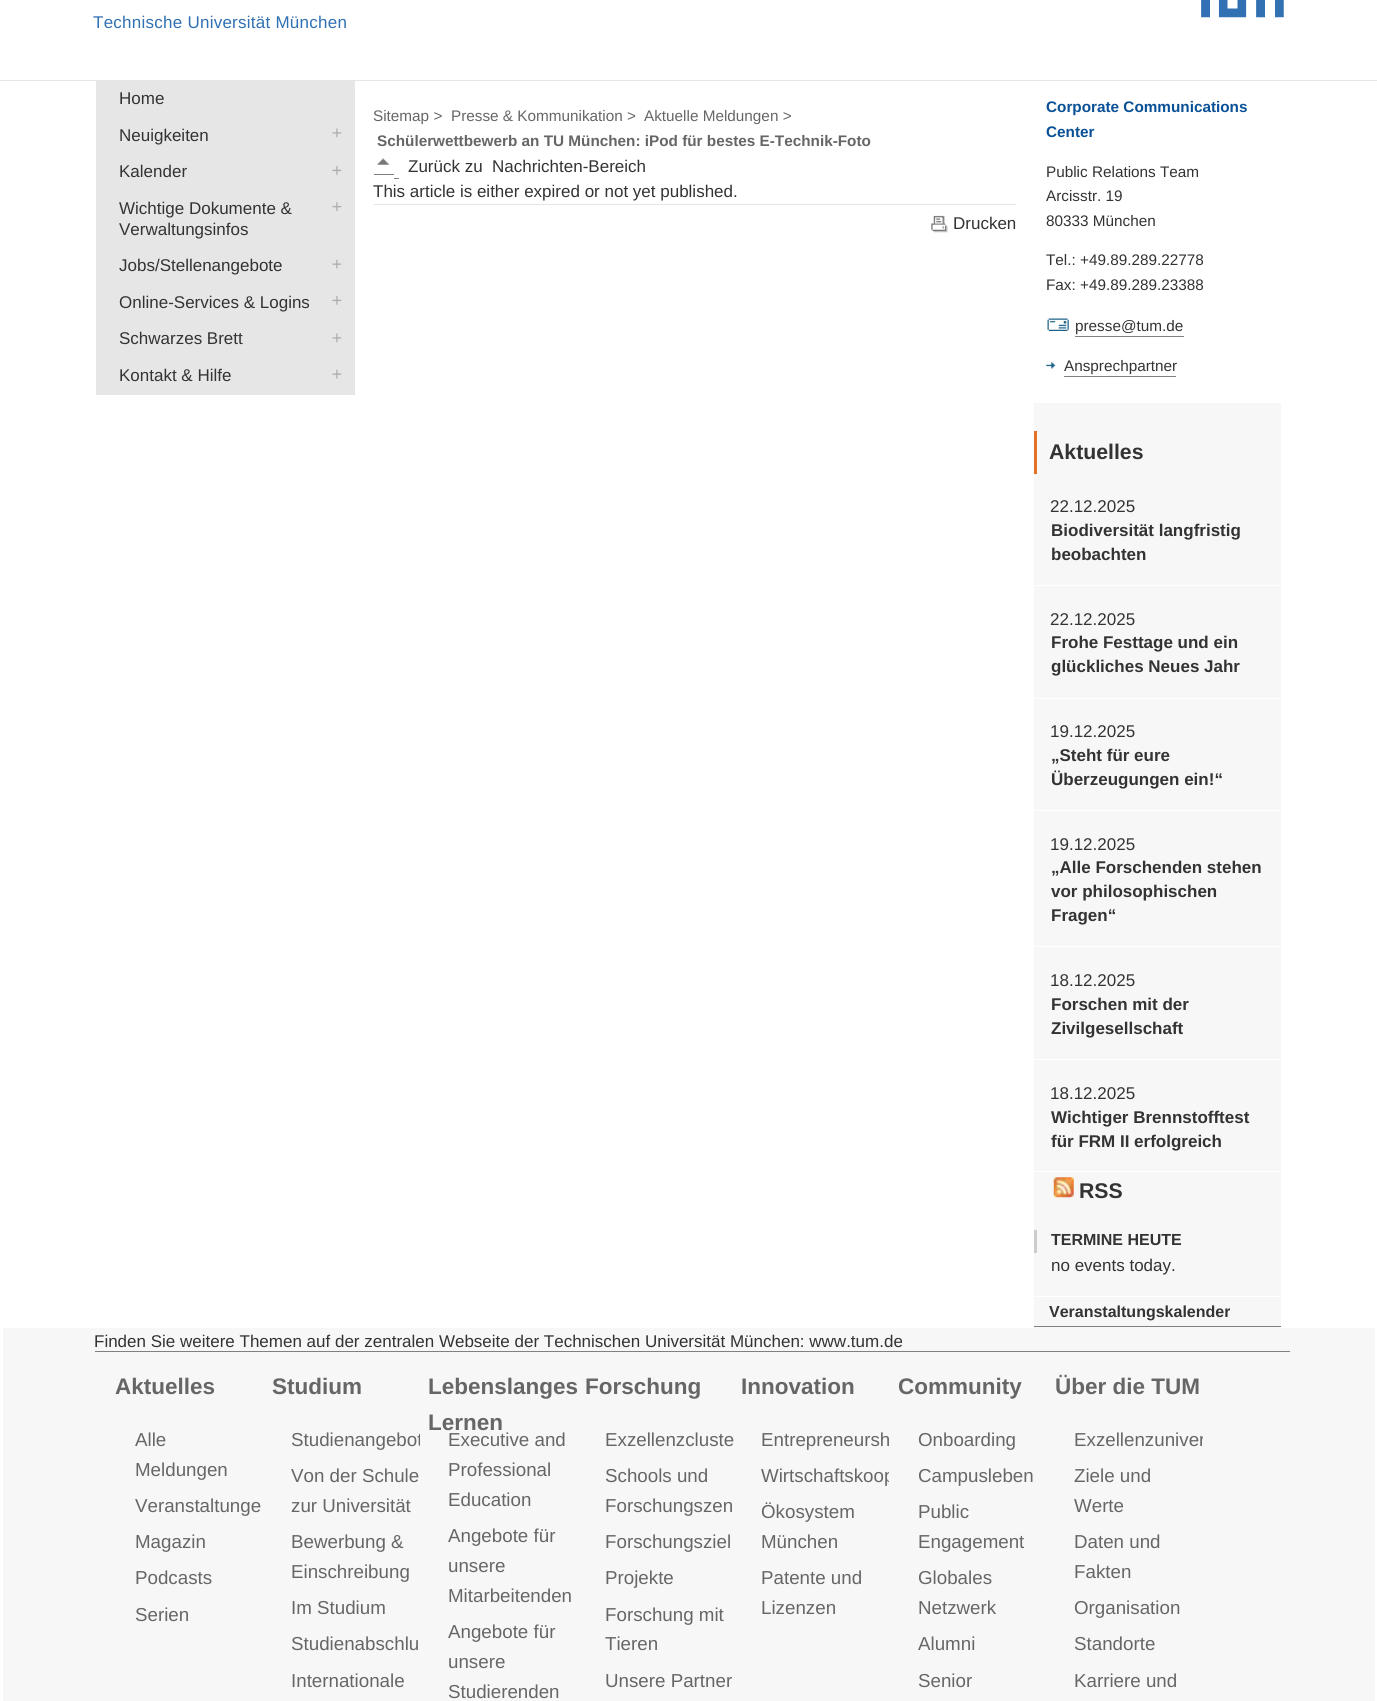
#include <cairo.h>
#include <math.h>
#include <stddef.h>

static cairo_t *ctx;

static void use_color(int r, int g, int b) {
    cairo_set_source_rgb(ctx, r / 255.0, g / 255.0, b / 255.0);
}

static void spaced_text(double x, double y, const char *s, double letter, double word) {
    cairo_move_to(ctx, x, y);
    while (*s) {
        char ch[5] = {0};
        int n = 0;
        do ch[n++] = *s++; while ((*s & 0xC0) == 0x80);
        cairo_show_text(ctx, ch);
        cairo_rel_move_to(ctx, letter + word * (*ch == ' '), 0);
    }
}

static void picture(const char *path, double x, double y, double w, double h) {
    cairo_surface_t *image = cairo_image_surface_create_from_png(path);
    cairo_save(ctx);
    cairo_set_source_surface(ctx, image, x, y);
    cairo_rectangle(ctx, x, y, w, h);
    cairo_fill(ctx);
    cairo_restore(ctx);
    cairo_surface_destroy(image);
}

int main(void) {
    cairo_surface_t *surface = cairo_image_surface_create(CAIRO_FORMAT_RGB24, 1377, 1701);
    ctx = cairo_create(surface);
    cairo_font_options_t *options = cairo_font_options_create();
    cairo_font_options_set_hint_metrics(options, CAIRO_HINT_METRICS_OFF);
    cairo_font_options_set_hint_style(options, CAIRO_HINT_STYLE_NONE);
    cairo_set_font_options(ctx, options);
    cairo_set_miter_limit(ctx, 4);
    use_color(255, 255, 255);
    cairo_paint(ctx);
    use_color(229, 229, 229);
    cairo_rectangle(ctx, 0, 80, 1377, 1);
    cairo_fill(ctx);
    picture("img1.png", 1201, 0, 83, 18);
    cairo_select_font_face(ctx, "Liberation Sans", CAIRO_FONT_SLANT_NORMAL, CAIRO_FONT_WEIGHT_NORMAL);
    cairo_set_font_size(ctx, 17);
    use_color(48, 112, 179);
    spaced_text(93, 28, "Technische Universität München", 0.25, 0);
    use_color(230, 230, 230);
    cairo_rectangle(ctx, 96, 81, 259, 314);
    cairo_fill(ctx);
    use_color(51, 51, 51);
    cairo_move_to(ctx, 119, 104);
    cairo_show_text(ctx, "Home");
    cairo_move_to(ctx, 119, 141);
    cairo_show_text(ctx, "Neuigkeiten");
    picture("img2.png", 332, 128, 10, 10);
    cairo_move_to(ctx, 119, 177);
    cairo_show_text(ctx, "Kalender");
    picture("img3.png", 332, 166, 10, 9);
    cairo_move_to(ctx, 119, 214);
    cairo_show_text(ctx, "Wichtige Dokumente &");
    cairo_move_to(ctx, 119, 235);
    cairo_show_text(ctx, "Verwaltungsinfos");
    picture("img4.png", 332, 202, 10, 9);
    cairo_move_to(ctx, 119, 271);
    cairo_show_text(ctx, "Jobs/Stellenangebote");
    picture("img5.png", 332, 259, 10, 10);
    cairo_move_to(ctx, 119, 308);
    cairo_show_text(ctx, "Online-Services & Logins");
    picture("img3.png", 332, 296, 10, 9);
    cairo_move_to(ctx, 119, 344);
    cairo_show_text(ctx, "Schwarzes Brett");
    picture("img2.png", 332, 333, 10, 10);
    cairo_move_to(ctx, 119, 381);
    cairo_show_text(ctx, "Kontakt & Hilfe");
    picture("img5.png", 332, 369, 10, 10);
    cairo_set_font_size(ctx, 15.3);
    use_color(102, 102, 102);
    cairo_move_to(ctx, 373, 121);
    cairo_show_text(ctx, "Sitemap >");
    cairo_move_to(ctx, 451, 121);
    cairo_show_text(ctx, "Presse & Kommunikation >");
    cairo_move_to(ctx, 644, 121);
    cairo_show_text(ctx, "Aktuelle Meldungen >");
    cairo_select_font_face(ctx, "Liberation Sans", CAIRO_FONT_SLANT_NORMAL, CAIRO_FONT_WEIGHT_BOLD);
    cairo_move_to(ctx, 377, 146);
    cairo_show_text(ctx, "Schülerwettbewerb an TU München: iPod für bestes E-Technik-Foto");
    picture("img6.png", 377, 158, 12, 7);
    cairo_select_font_face(ctx, "Liberation Sans", CAIRO_FONT_SLANT_NORMAL, CAIRO_FONT_WEIGHT_NORMAL);
    cairo_set_font_size(ctx, 17);
    use_color(51, 51, 51);
    cairo_move_to(ctx, 408, 172);
    cairo_show_text(ctx, "Zurück zu");
    cairo_move_to(ctx, 492, 172);
    cairo_show_text(ctx, "Nachrichten-Bereich");
    use_color(128, 128, 128);
    cairo_rectangle(ctx, 374, 174, 20, 1);
    cairo_fill(ctx);
    cairo_rectangle(ctx, 394, 178, 5, 1);
    cairo_fill(ctx);
    use_color(51, 51, 51);
    cairo_move_to(ctx, 373, 197);
    cairo_show_text(ctx, "This article is either expired or not yet published.");
    use_color(230, 230, 230);
    cairo_rectangle(ctx, 374, 204, 642, 1);
    cairo_fill(ctx);
    picture("img7.png", 931, 215, 17, 18);
    use_color(51, 51, 51);
    cairo_move_to(ctx, 953, 229);
    cairo_show_text(ctx, "Drucken");
    cairo_select_font_face(ctx, "Liberation Sans", CAIRO_FONT_SLANT_NORMAL, CAIRO_FONT_WEIGHT_BOLD);
    cairo_set_font_size(ctx, 15.3);
    use_color(10, 80, 150);
    cairo_move_to(ctx, 1046, 112);
    cairo_show_text(ctx, "Corporate Communications");
    cairo_move_to(ctx, 1046, 137);
    cairo_show_text(ctx, "Center");
    cairo_select_font_face(ctx, "Liberation Sans", CAIRO_FONT_SLANT_NORMAL, CAIRO_FONT_WEIGHT_NORMAL);
    use_color(51, 51, 51);
    cairo_move_to(ctx, 1046, 177);
    cairo_show_text(ctx, "Public Relations Team");
    cairo_move_to(ctx, 1046, 201);
    cairo_show_text(ctx, "Arcisstr. 19");
    cairo_move_to(ctx, 1046, 226);
    cairo_show_text(ctx, "80333 München");
    cairo_move_to(ctx, 1046, 265);
    cairo_show_text(ctx, "Tel.: +49.89.289.22778");
    cairo_move_to(ctx, 1046, 290);
    cairo_show_text(ctx, "Fax: +49.89.289.23388");
    picture("img8.png", 1047, 318, 22, 13);
    cairo_move_to(ctx, 1075, 331);
    cairo_show_text(ctx, "presse@tum.de");
    use_color(128, 128, 128);
    cairo_rectangle(ctx, 1075, 336, 109, 1);
    cairo_fill(ctx);
    picture("img9.png", 1046, 362, 10, 7);
    use_color(51, 51, 51);
    cairo_move_to(ctx, 1064, 371);
    cairo_show_text(ctx, "Ansprechpartner");
    use_color(128, 128, 128);
    cairo_rectangle(ctx, 1064, 376, 112, 1);
    cairo_fill(ctx);
    use_color(247, 247, 247);
    cairo_rectangle(ctx, 1034, 403, 247, 925);
    cairo_fill(ctx);
    use_color(227, 114, 34);
    cairo_rectangle(ctx, 1034, 431, 3, 43);
    cairo_fill(ctx);
    cairo_select_font_face(ctx, "Liberation Sans", CAIRO_FONT_SLANT_NORMAL, CAIRO_FONT_WEIGHT_BOLD);
    cairo_set_font_size(ctx, 21.25);
    use_color(51, 51, 51);
    cairo_move_to(ctx, 1049, 459);
    cairo_show_text(ctx, "Aktuelles");
    cairo_select_font_face(ctx, "Liberation Sans", CAIRO_FONT_SLANT_NORMAL, CAIRO_FONT_WEIGHT_NORMAL);
    cairo_set_font_size(ctx, 17);
    cairo_move_to(ctx, 1050, 512);
    cairo_show_text(ctx, "22.12.2025");
    use_color(255, 255, 255);
    cairo_rectangle(ctx, 1034, 585, 247, 1);
    cairo_fill(ctx);
    cairo_select_font_face(ctx, "Liberation Sans", CAIRO_FONT_SLANT_NORMAL, CAIRO_FONT_WEIGHT_BOLD);
    use_color(51, 51, 51);
    cairo_move_to(ctx, 1051, 536);
    cairo_show_text(ctx, "Biodiversität langfristig");
    cairo_move_to(ctx, 1051, 560);
    cairo_show_text(ctx, "beobachten");
    cairo_select_font_face(ctx, "Liberation Sans", CAIRO_FONT_SLANT_NORMAL, CAIRO_FONT_WEIGHT_NORMAL);
    cairo_move_to(ctx, 1050, 625);
    cairo_show_text(ctx, "22.12.2025");
    use_color(255, 255, 255);
    cairo_rectangle(ctx, 1034, 698, 247, 1);
    cairo_fill(ctx);
    cairo_select_font_face(ctx, "Liberation Sans", CAIRO_FONT_SLANT_NORMAL, CAIRO_FONT_WEIGHT_BOLD);
    use_color(51, 51, 51);
    cairo_move_to(ctx, 1051, 648);
    cairo_show_text(ctx, "Frohe Festtage und ein");
    cairo_move_to(ctx, 1051, 672);
    cairo_show_text(ctx, "glückliches Neues Jahr");
    cairo_select_font_face(ctx, "Liberation Sans", CAIRO_FONT_SLANT_NORMAL, CAIRO_FONT_WEIGHT_NORMAL);
    cairo_move_to(ctx, 1050, 737);
    cairo_show_text(ctx, "19.12.2025");
    use_color(255, 255, 255);
    cairo_rectangle(ctx, 1034, 810, 247, 1);
    cairo_fill(ctx);
    cairo_select_font_face(ctx, "Liberation Sans", CAIRO_FONT_SLANT_NORMAL, CAIRO_FONT_WEIGHT_BOLD);
    use_color(51, 51, 51);
    cairo_move_to(ctx, 1051, 761);
    cairo_show_text(ctx, "„Steht für eure");
    cairo_move_to(ctx, 1051, 785);
    cairo_show_text(ctx, "Überzeugungen ein!“");
    cairo_select_font_face(ctx, "Liberation Sans", CAIRO_FONT_SLANT_NORMAL, CAIRO_FONT_WEIGHT_NORMAL);
    cairo_move_to(ctx, 1050, 850);
    cairo_show_text(ctx, "19.12.2025");
    use_color(255, 255, 255);
    cairo_rectangle(ctx, 1034, 946, 247, 1);
    cairo_fill(ctx);
    cairo_select_font_face(ctx, "Liberation Sans", CAIRO_FONT_SLANT_NORMAL, CAIRO_FONT_WEIGHT_BOLD);
    use_color(51, 51, 51);
    cairo_move_to(ctx, 1051, 873);
    cairo_show_text(ctx, "„Alle Forschenden stehen");
    cairo_move_to(ctx, 1051, 897);
    cairo_show_text(ctx, "vor philosophischen");
    cairo_move_to(ctx, 1051, 921);
    cairo_show_text(ctx, "Fragen“");
    cairo_select_font_face(ctx, "Liberation Sans", CAIRO_FONT_SLANT_NORMAL, CAIRO_FONT_WEIGHT_NORMAL);
    cairo_move_to(ctx, 1050, 986);
    cairo_show_text(ctx, "18.12.2025");
    use_color(255, 255, 255);
    cairo_rectangle(ctx, 1034, 1059, 247, 1);
    cairo_fill(ctx);
    cairo_select_font_face(ctx, "Liberation Sans", CAIRO_FONT_SLANT_NORMAL, CAIRO_FONT_WEIGHT_BOLD);
    use_color(51, 51, 51);
    cairo_move_to(ctx, 1051, 1010);
    cairo_show_text(ctx, "Forschen mit der");
    cairo_move_to(ctx, 1051, 1034);
    cairo_show_text(ctx, "Zivilgesellschaft");
    cairo_select_font_face(ctx, "Liberation Sans", CAIRO_FONT_SLANT_NORMAL, CAIRO_FONT_WEIGHT_NORMAL);
    cairo_move_to(ctx, 1050, 1099);
    cairo_show_text(ctx, "18.12.2025");
    use_color(255, 255, 255);
    cairo_rectangle(ctx, 1034, 1171, 247, 1);
    cairo_fill(ctx);
    cairo_select_font_face(ctx, "Liberation Sans", CAIRO_FONT_SLANT_NORMAL, CAIRO_FONT_WEIGHT_BOLD);
    use_color(51, 51, 51);
    cairo_move_to(ctx, 1051, 1123);
    cairo_show_text(ctx, "Wichtiger Brennstofftest");
    cairo_move_to(ctx, 1051, 1147);
    cairo_show_text(ctx, "für FRM II erfolgreich");
    picture("img10.png", 1053, 1177, 21, 21);
    cairo_set_font_size(ctx, 21.25);
    cairo_move_to(ctx, 1079, 1198);
    cairo_show_text(ctx, "RSS");
    use_color(204, 204, 204);
    cairo_rectangle(ctx, 1034, 1230, 3, 23);
    cairo_fill(ctx);
    cairo_set_font_size(ctx, 16);
    use_color(51, 51, 51);
    cairo_move_to(ctx, 1051, 1245);
    cairo_show_text(ctx, "TERMINE HEUTE");
    use_color(255, 255, 255);
    cairo_rectangle(ctx, 1034, 1296, 247, 1);
    cairo_fill(ctx);
    cairo_select_font_face(ctx, "Liberation Sans", CAIRO_FONT_SLANT_NORMAL, CAIRO_FONT_WEIGHT_NORMAL);
    cairo_set_font_size(ctx, 17);
    use_color(51, 51, 51);
    cairo_move_to(ctx, 1051, 1271);
    cairo_show_text(ctx, "no events today.");
    use_color(128, 128, 128);
    cairo_rectangle(ctx, 1034, 1326, 247, 1);
    cairo_fill(ctx);
    cairo_select_font_face(ctx, "Liberation Sans", CAIRO_FONT_SLANT_NORMAL, CAIRO_FONT_WEIGHT_BOLD);
    cairo_set_font_size(ctx, 16);
    use_color(51, 51, 51);
    cairo_move_to(ctx, 1049, 1317);
    cairo_show_text(ctx, "Veranstaltungskalender");
    use_color(247, 247, 247);
    cairo_rectangle(ctx, 3, 1328, 1372, 373);
    cairo_fill(ctx);
    use_color(128, 128, 128);
    cairo_rectangle(ctx, 95, 1351, 1195, 1);
    cairo_fill(ctx);
    cairo_select_font_face(ctx, "Liberation Sans", CAIRO_FONT_SLANT_NORMAL, CAIRO_FONT_WEIGHT_NORMAL);
    cairo_set_font_size(ctx, 17);
    use_color(51, 51, 51);
    cairo_move_to(ctx, 94, 1347);
    cairo_show_text(ctx, "Finden Sie weitere Themen auf der zentralen Webseite der Technischen Universität München: www.tum.de");
    cairo_select_font_face(ctx, "Liberation Sans", CAIRO_FONT_SLANT_NORMAL, CAIRO_FONT_WEIGHT_BOLD);
    cairo_set_font_size(ctx, 22.5);
    use_color(102, 102, 102);
    cairo_move_to(ctx, 115, 1394);
    cairo_show_text(ctx, "Aktuelles");
    cairo_select_font_face(ctx, "Liberation Sans", CAIRO_FONT_SLANT_NORMAL, CAIRO_FONT_WEIGHT_NORMAL);
    cairo_set_font_size(ctx, 18.75);
    cairo_move_to(ctx, 135, 1446);
    cairo_show_text(ctx, "Alle");
    cairo_move_to(ctx, 135, 1476);
    cairo_show_text(ctx, "Meldungen");
    cairo_move_to(ctx, 135, 1512);
    cairo_show_text(ctx, "Veranstaltunge");
    cairo_move_to(ctx, 135, 1548);
    cairo_show_text(ctx, "Magazin");
    cairo_move_to(ctx, 135, 1584);
    cairo_show_text(ctx, "Podcasts");
    cairo_move_to(ctx, 135, 1621);
    cairo_show_text(ctx, "Serien");
    cairo_select_font_face(ctx, "Liberation Sans", CAIRO_FONT_SLANT_NORMAL, CAIRO_FONT_WEIGHT_BOLD);
    cairo_set_font_size(ctx, 22.5);
    cairo_move_to(ctx, 272, 1394);
    cairo_show_text(ctx, "Studium");
    cairo_save(ctx);
    cairo_rectangle(ctx, 291, 1425, 129, 30);
    cairo_clip(ctx);
    cairo_select_font_face(ctx, "Liberation Sans", CAIRO_FONT_SLANT_NORMAL, CAIRO_FONT_WEIGHT_NORMAL);
    cairo_set_font_size(ctx, 18.75);
    cairo_move_to(ctx, 291, 1446);
    cairo_show_text(ctx, "Studienangebot");
    cairo_restore(ctx);
    cairo_select_font_face(ctx, "Liberation Sans", CAIRO_FONT_SLANT_NORMAL, CAIRO_FONT_WEIGHT_NORMAL);
    cairo_set_font_size(ctx, 18.75);
    cairo_move_to(ctx, 291, 1482);
    cairo_show_text(ctx, "Von der Schule");
    cairo_move_to(ctx, 291, 1512);
    cairo_show_text(ctx, "zur Universität");
    cairo_move_to(ctx, 291, 1548);
    cairo_show_text(ctx, "Bewerbung &");
    cairo_move_to(ctx, 291, 1578);
    cairo_show_text(ctx, "Einschreibung");
    cairo_move_to(ctx, 291, 1614);
    cairo_show_text(ctx, "Im Studium");
    cairo_move_to(ctx, 291, 1650);
    cairo_show_text(ctx, "Studienabschlu");
    cairo_move_to(ctx, 291, 1687);
    cairo_show_text(ctx, "Internationale");
    cairo_select_font_face(ctx, "Liberation Sans", CAIRO_FONT_SLANT_NORMAL, CAIRO_FONT_WEIGHT_BOLD);
    cairo_set_font_size(ctx, 22.5);
    cairo_move_to(ctx, 428, 1394);
    cairo_show_text(ctx, "Lebenslanges");
    cairo_move_to(ctx, 428, 1430);
    cairo_show_text(ctx, "Lernen");
    cairo_select_font_face(ctx, "Liberation Sans", CAIRO_FONT_SLANT_NORMAL, CAIRO_FONT_WEIGHT_NORMAL);
    cairo_set_font_size(ctx, 18.75);
    cairo_move_to(ctx, 448, 1446);
    cairo_show_text(ctx, "Executive and");
    cairo_move_to(ctx, 448, 1476);
    cairo_show_text(ctx, "Professional");
    cairo_move_to(ctx, 448, 1506);
    cairo_show_text(ctx, "Education");
    cairo_move_to(ctx, 448, 1542);
    cairo_show_text(ctx, "Angebote für");
    cairo_move_to(ctx, 448, 1572);
    cairo_show_text(ctx, "unsere");
    cairo_move_to(ctx, 448, 1602);
    cairo_show_text(ctx, "Mitarbeitenden");
    cairo_move_to(ctx, 448, 1638);
    cairo_show_text(ctx, "Angebote für");
    cairo_move_to(ctx, 448, 1668);
    cairo_show_text(ctx, "unsere");
    cairo_move_to(ctx, 448, 1698);
    cairo_show_text(ctx, "Studierenden");
    cairo_select_font_face(ctx, "Liberation Sans", CAIRO_FONT_SLANT_NORMAL, CAIRO_FONT_WEIGHT_BOLD);
    cairo_set_font_size(ctx, 22.5);
    cairo_move_to(ctx, 585, 1394);
    cairo_show_text(ctx, "Forschung");
    cairo_select_font_face(ctx, "Liberation Sans", CAIRO_FONT_SLANT_NORMAL, CAIRO_FONT_WEIGHT_NORMAL);
    cairo_set_font_size(ctx, 18.75);
    cairo_move_to(ctx, 605, 1446);
    cairo_show_text(ctx, "Exzellenzcluste");
    cairo_move_to(ctx, 605, 1482);
    cairo_show_text(ctx, "Schools und");
    cairo_move_to(ctx, 605, 1512);
    cairo_show_text(ctx, "Forschungszen");
    cairo_move_to(ctx, 605, 1548);
    cairo_show_text(ctx, "Forschungsziel");
    cairo_move_to(ctx, 605, 1584);
    cairo_show_text(ctx, "Projekte");
    cairo_move_to(ctx, 605, 1621);
    cairo_show_text(ctx, "Forschung mit");
    cairo_move_to(ctx, 605, 1650);
    cairo_show_text(ctx, "Tieren");
    cairo_move_to(ctx, 605, 1687);
    cairo_show_text(ctx, "Unsere Partner");
    cairo_select_font_face(ctx, "Liberation Sans", CAIRO_FONT_SLANT_NORMAL, CAIRO_FONT_WEIGHT_BOLD);
    cairo_set_font_size(ctx, 22.5);
    cairo_move_to(ctx, 741, 1394);
    cairo_show_text(ctx, "Innovation");
    cairo_select_font_face(ctx, "Liberation Sans", CAIRO_FONT_SLANT_NORMAL, CAIRO_FONT_WEIGHT_NORMAL);
    cairo_set_font_size(ctx, 18.75);
    cairo_move_to(ctx, 761, 1446);
    cairo_show_text(ctx, "Entrepreneursh");
    cairo_save(ctx);
    cairo_rectangle(ctx, 761, 1461, 128, 30);
    cairo_clip(ctx);
    cairo_move_to(ctx, 761, 1482);
    cairo_show_text(ctx, "Wirtschaftskoop");
    cairo_restore(ctx);
    cairo_move_to(ctx, 761, 1518);
    cairo_show_text(ctx, "Ökosystem");
    cairo_move_to(ctx, 761, 1548);
    cairo_show_text(ctx, "München");
    cairo_move_to(ctx, 761, 1584);
    cairo_show_text(ctx, "Patente und");
    cairo_move_to(ctx, 761, 1614);
    cairo_show_text(ctx, "Lizenzen");
    cairo_select_font_face(ctx, "Liberation Sans", CAIRO_FONT_SLANT_NORMAL, CAIRO_FONT_WEIGHT_BOLD);
    cairo_set_font_size(ctx, 22.5);
    cairo_move_to(ctx, 898, 1394);
    cairo_show_text(ctx, "Community");
    cairo_select_font_face(ctx, "Liberation Sans", CAIRO_FONT_SLANT_NORMAL, CAIRO_FONT_WEIGHT_NORMAL);
    cairo_set_font_size(ctx, 18.75);
    cairo_move_to(ctx, 918, 1446);
    cairo_show_text(ctx, "Onboarding");
    cairo_move_to(ctx, 918, 1482);
    cairo_show_text(ctx, "Campusleben");
    cairo_move_to(ctx, 918, 1518);
    cairo_show_text(ctx, "Public");
    cairo_move_to(ctx, 918, 1548);
    cairo_show_text(ctx, "Engagement");
    cairo_move_to(ctx, 918, 1584);
    cairo_show_text(ctx, "Globales");
    cairo_move_to(ctx, 918, 1614);
    cairo_show_text(ctx, "Netzwerk");
    cairo_move_to(ctx, 918, 1650);
    cairo_show_text(ctx, "Alumni");
    cairo_move_to(ctx, 918, 1687);
    cairo_show_text(ctx, "Senior");
    cairo_select_font_face(ctx, "Liberation Sans", CAIRO_FONT_SLANT_NORMAL, CAIRO_FONT_WEIGHT_BOLD);
    cairo_set_font_size(ctx, 22.5);
    cairo_move_to(ctx, 1055, 1394);
    cairo_show_text(ctx, "Über die TUM");
    cairo_save(ctx);
    cairo_rectangle(ctx, 1075, 1425, 128, 30);
    cairo_clip(ctx);
    cairo_select_font_face(ctx, "Liberation Sans", CAIRO_FONT_SLANT_NORMAL, CAIRO_FONT_WEIGHT_NORMAL);
    cairo_set_font_size(ctx, 18.75);
    cairo_move_to(ctx, 1074, 1446);
    cairo_show_text(ctx, "Exzellenzuniver");
    cairo_restore(ctx);
    cairo_select_font_face(ctx, "Liberation Sans", CAIRO_FONT_SLANT_NORMAL, CAIRO_FONT_WEIGHT_NORMAL);
    cairo_set_font_size(ctx, 18.75);
    cairo_move_to(ctx, 1074, 1482);
    cairo_show_text(ctx, "Ziele und");
    cairo_move_to(ctx, 1074, 1512);
    cairo_show_text(ctx, "Werte");
    cairo_move_to(ctx, 1074, 1548);
    cairo_show_text(ctx, "Daten und");
    cairo_move_to(ctx, 1074, 1578);
    cairo_show_text(ctx, "Fakten");
    cairo_move_to(ctx, 1074, 1614);
    cairo_show_text(ctx, "Organisation");
    cairo_move_to(ctx, 1074, 1650);
    cairo_show_text(ctx, "Standorte");
    cairo_move_to(ctx, 1074, 1687);
    cairo_show_text(ctx, "Karriere und");
    cairo_surface_write_to_png(surface, "result.png");
    cairo_font_options_destroy(options);
    cairo_destroy(ctx);
    cairo_surface_destroy(surface);
    return 0;
}
